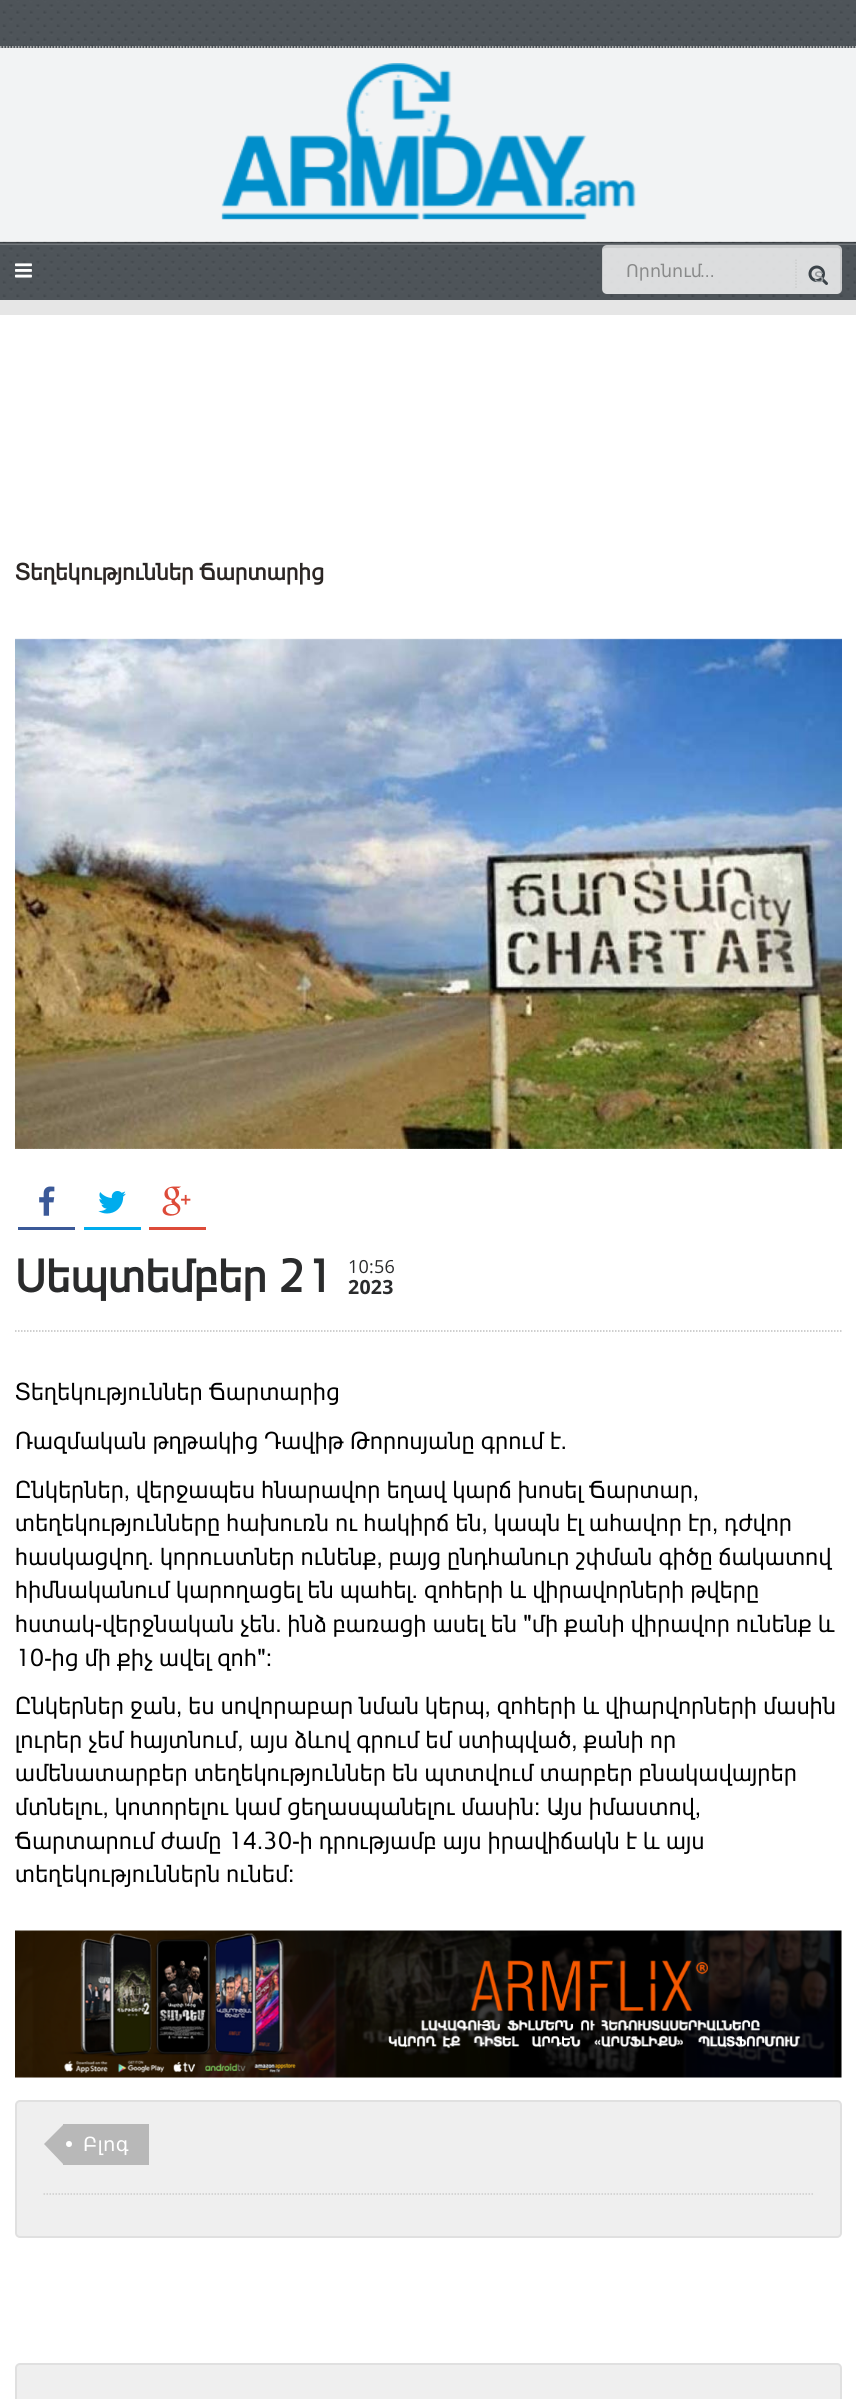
#include <cairo.h>
#include <math.h>
#include <stddef.h>

static cairo_t *ctx;

static void use_color(int r, int g, int b) {
    cairo_set_source_rgb(ctx, r / 255.0, g / 255.0, b / 255.0);
}

static void spaced_text(double x, double y, const char *s, double letter, double word) {
    cairo_move_to(ctx, x, y);
    while (*s) {
        char ch[5] = {0};
        int n = 0;
        do ch[n++] = *s++; while ((*s & 0xC0) == 0x80);
        cairo_show_text(ctx, ch);
        cairo_rel_move_to(ctx, letter + word * (*ch == ' '), 0);
    }
}

static void round_rect(double x, double y, double w, double h, double r) {
    cairo_new_sub_path(ctx);
    cairo_arc(ctx, x + w - r, y + h - r, r, 0, M_PI / 2);
    cairo_arc(ctx, x + r, y + h - r, r, M_PI / 2, M_PI);
    cairo_arc(ctx, x + r, y + r, r, M_PI, 1.5 * M_PI);
    cairo_arc(ctx, x + w - r, y + r, r, 1.5 * M_PI, 2 * M_PI);
    cairo_close_path(ctx);
}

static void picture(const char *path, double x, double y, double w, double h) {
    cairo_surface_t *image = cairo_image_surface_create_from_png(path);
    cairo_save(ctx);
    cairo_set_source_surface(ctx, image, x, y);
    cairo_rectangle(ctx, x, y, w, h);
    cairo_fill(ctx);
    cairo_restore(ctx);
    cairo_surface_destroy(image);
}

int main(void) {
    cairo_surface_t *surface = cairo_image_surface_create(CAIRO_FORMAT_RGB24, 856, 2399);
    ctx = cairo_create(surface);
    cairo_font_options_t *options = cairo_font_options_create();
    cairo_font_options_set_hint_metrics(options, CAIRO_HINT_METRICS_OFF);
    cairo_font_options_set_hint_style(options, CAIRO_HINT_STYLE_NONE);
    cairo_set_font_options(ctx, options);
    cairo_set_miter_limit(ctx, 4);
    use_color(255, 255, 255);
    cairo_paint(ctx);
    use_color(242, 243, 244);
    cairo_rectangle(ctx, 0, 48, 856, 194);
    cairo_fill(ctx);
    use_color(63, 72, 79);
    cairo_rectangle(ctx, 0, 0, 856, 48);
    cairo_fill(ctx);
    picture("img1.png", 0, 0, 856, 48);
    cairo_new_path(ctx);
    cairo_move_to(ctx, 0, 47);
    cairo_line_to(ctx, 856.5, 47);
    use_color(204, 204, 204);
    cairo_set_line_width(ctx, 1.5);
    cairo_set_dash(ctx, (double[]){1.5, 1.5}, 2, 0);
    cairo_stroke(ctx);
    picture("img2.png", 221, 63, 415, 157);
    use_color(230, 230, 230);
    cairo_new_path(ctx);
    cairo_move_to(ctx, 0, 300);
    cairo_line_to(ctx, 0, 315);
    cairo_line_to(ctx, 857, 315);
    cairo_line_to(ctx, 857, 257);
    cairo_line_to(ctx, 856, 257);
    cairo_line_to(ctx, 856, 300);
    cairo_close_path(ctx);
    cairo_fill(ctx);
    use_color(63, 72, 79);
    cairo_rectangle(ctx, 0, 242, 856, 58);
    cairo_fill(ctx);
    picture("img3.png", 0, 241, 856, 59);
    cairo_set_source_rgba(ctx, 1, 1, 1, 0.2);
    cairo_rectangle(ctx, 0, 243, 856, 2);
    cairo_fill(ctx);
    cairo_set_source_rgba(ctx, 0, 0, 0, 0.2);
    cairo_rectangle(ctx, 0, 242, 856, 2);
    cairo_fill(ctx);
    picture("img4.png", 15, 263, 17, 15);
    cairo_set_source_rgba(ctx, 1, 1, 1, 0.8);
    round_rect(602, 245, 240, 49, 5);
    cairo_fill(ctx);
    cairo_set_source_rgba(ctx, 0, 0, 0, 0.08);
    cairo_new_path(ctx);
    cairo_move_to(ctx, 606, 248);
    cairo_line_to(ctx, 837, 248);
    cairo_curve_to(ctx, 839, 248, 840, 249, 840, 250);
    cairo_line_to(ctx, 840, 291);
    cairo_curve_to(ctx, 840, 293, 839, 294, 838, 294);
    cairo_curve_to(ctx, 840, 293, 842, 291, 842, 289);
    cairo_line_to(ctx, 842, 250);
    cairo_curve_to(ctx, 842, 247, 840, 245, 837, 245);
    cairo_line_to(ctx, 607, 245);
    cairo_curve_to(ctx, 604, 245, 602, 247, 602, 250);
    cairo_line_to(ctx, 602, 289);
    cairo_curve_to(ctx, 602, 290, 602, 291, 603, 292);
    cairo_line_to(ctx, 603, 257);
    cairo_curve_to(ctx, 603, 254, 601, 248, 606, 248);
    cairo_close_path(ctx);
    cairo_fill(ctx);
    cairo_new_path(ctx);
    cairo_move_to(ctx, 796, 259.5);
    cairo_line_to(ctx, 796, 289.5);
    use_color(204, 204, 204);
    cairo_stroke(ctx);
    picture("img5.png", 808, 265, 20, 20);
    cairo_select_font_face(ctx, "DejaVu Sans", CAIRO_FONT_SLANT_NORMAL, CAIRO_FONT_WEIGHT_NORMAL);
    cairo_set_font_size(ctx, 17.5);
    use_color(137, 138, 138);
    cairo_move_to(ctx, 626, 277);
    cairo_show_text(ctx, "Որոնում");
    cairo_select_font_face(ctx, "Liberation Sans", CAIRO_FONT_SLANT_NORMAL, CAIRO_FONT_WEIGHT_NORMAL);
    cairo_move_to(ctx, 700, 277);
    cairo_show_text(ctx, "...");
    cairo_set_font_size(ctx, 20);
    use_color(151, 155, 158);
    cairo_move_to(ctx, 814, 282);
    cairo_show_text(ctx, "s");
    cairo_new_path(ctx);
    cairo_move_to(ctx, 15, 1331);
    cairo_line_to(ctx, 841.5, 1331);
    use_color(191, 191, 191);
    cairo_stroke(ctx);
    cairo_select_font_face(ctx, "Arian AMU", CAIRO_FONT_SLANT_NORMAL, CAIRO_FONT_WEIGHT_BOLD);
    cairo_set_font_size(ctx, 23);
    use_color(43, 38, 36);
    spaced_text(15, 580, "Տեղեկություններ Ճարտարից", 0.25, 0);
    cairo_new_path(ctx);
    cairo_move_to(ctx, 15, 1148);
    cairo_line_to(ctx, 841.5, 1148);
    use_color(191, 191, 191);
    cairo_stroke(ctx);
    picture("img6.png", 15, 638, 827, 511);
    use_color(59, 89, 152);
    cairo_rectangle(ctx, 18, 1227, 57, 3);
    cairo_fill(ctx);
    picture("img7.png", 39, 1186, 16, 30);
    use_color(0, 172, 237);
    cairo_rectangle(ctx, 84, 1227, 57, 3);
    cairo_fill(ctx);
    picture("img8.png", 98, 1191, 28, 23);
    use_color(221, 75, 57);
    cairo_rectangle(ctx, 149, 1227, 57, 3);
    cairo_fill(ctx);
    picture("img9.png", 162, 1186, 29, 30);
    cairo_set_font_size(ctx, 45);
    use_color(42, 43, 44);
    spaced_text(15, 1292, "Սեպտեմբեր 21", 0.25, 0);
    cairo_select_font_face(ctx, "Open Sans", CAIRO_FONT_SLANT_NORMAL, CAIRO_FONT_WEIGHT_NORMAL);
    cairo_set_font_size(ctx, 18);
    spaced_text(348, 1273, "10:56", 0.25, 0);
    cairo_select_font_face(ctx, "Open Sans", CAIRO_FONT_SLANT_NORMAL, CAIRO_FONT_WEIGHT_BOLD);
    cairo_set_font_size(ctx, 19.5);
    spaced_text(348, 1294, "2023", 0.25, 0);
    cairo_select_font_face(ctx, "Arian AMU", CAIRO_FONT_SLANT_NORMAL, CAIRO_FONT_WEIGHT_NORMAL);
    cairo_set_font_size(ctx, 24);
    use_color(0, 0, 0);
    spaced_text(15, 1400, "Տեղեկություններ Ճարտարից", 0.35, 0);
    spaced_text(15, 1449, "Ռազմական թղթակից Դավիթ Թորոսյանը գրում է․", 0.35, 0);
    spaced_text(15, 1498, "Ընկերներ, վերջապես հնարավոր եղավ կարճ խոսել Ճարտար,", 0.35, 0);
    spaced_text(15, 1531, "տեղեկությունները հախուռն ու հակիրճ են, կապն էլ ահավոր էր, դժվոր", 0.35, 0);
    spaced_text(15, 1565, "հասկացվող․ կորուստներ ունենք, բայց ընդհանուր շփման գիծը ճակատով", 0.35, 0);
    spaced_text(15, 1598, "հիմնականում կարողացել են պահել․ զոհերի և վիրավորների թվերը", 0.35, 0);
    spaced_text(15, 1632, "հստակ-վերջնական չեն․ ինձ բառացի ասել են \"մի քանի վիրավոր ունենք և", 0.35, 0);
    spaced_text(15, 1666, "10-ից մի քիչ ավել զոհ\"։", 0.35, 0);
    spaced_text(15, 1714, "Ընկերներ ջան, ես սովորաբար նման կերպ, զոհերի և վիարվորների մասին", 0.35, 0);
    spaced_text(15, 1748, "լուրեր չեմ հայտնում, այս ձևով գրում եմ ստիպված, քանի որ", 0.35, 0);
    spaced_text(15, 1781, "ամենատարբեր տեղեկություններ են պտտվում տարբեր բնակավայրեր", 0.35, 0);
    spaced_text(15, 1815, "մտնելու, կոտորելու կամ ցեղասպանելու մասին։ Այս իմաստով,", 0.35, 0);
    spaced_text(15, 1849, "Ճարտարում ժամը 14․30-ի դրությամբ այս իրավիճակն է և այս", 0.35, 0);
    spaced_text(15, 1882, "տեղեկություններն ունեմ։", 0.35, 0);
    picture("img10.png", 15, 1930, 827, 148);
    use_color(239, 239, 239);
    round_rect(16, 2101, 825, 136, 4);
    cairo_fill_preserve(ctx);
    use_color(224, 224, 224);
    cairo_set_line_width(ctx, 2);
    cairo_set_dash(ctx, NULL, 0, 0);
    cairo_stroke(ctx);
    use_color(184, 184, 184);
    cairo_rectangle(ctx, 63, 2124, 86, 41);
    cairo_fill(ctx);
    cairo_new_path(ctx);
    cairo_move_to(ctx, 64, 2124);
    cairo_line_to(ctx, 84, 2144);
    cairo_line_to(ctx, 64, 2165);
    cairo_line_to(ctx, 44, 2144);
    cairo_close_path(ctx);
    cairo_fill(ctx);
    cairo_select_font_face(ctx, "DejaVu Sans", CAIRO_FONT_SLANT_NORMAL, CAIRO_FONT_WEIGHT_NORMAL);
    cairo_set_font_size(ctx, 19.5);
    use_color(255, 255, 255);
    spaced_text(83, 2151, "Բլոգ", 0.25, 0);
    cairo_new_path(ctx);
    cairo_arc(ctx, 69, 2144, 3, 0, 2 * M_PI);
    cairo_fill(ctx);
    cairo_new_path(ctx);
    cairo_move_to(ctx, 43.5, 2194);
    cairo_line_to(ctx, 813, 2194);
    use_color(204, 204, 204);
    cairo_set_line_width(ctx, 1.5);
    cairo_set_dash(ctx, (double[]){1.5, 1.5}, 2, 0);
    cairo_stroke(ctx);
    use_color(239, 239, 239);
    round_rect(16, 2364, 825, 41, 4);
    cairo_fill_preserve(ctx);
    use_color(224, 224, 224);
    cairo_set_line_width(ctx, 2);
    cairo_set_dash(ctx, NULL, 0, 0);
    cairo_stroke(ctx);
    cairo_surface_write_to_png(surface, "result.png");
    cairo_font_options_destroy(options);
    cairo_destroy(ctx);
    cairo_surface_destroy(surface);
    return 0;
}
